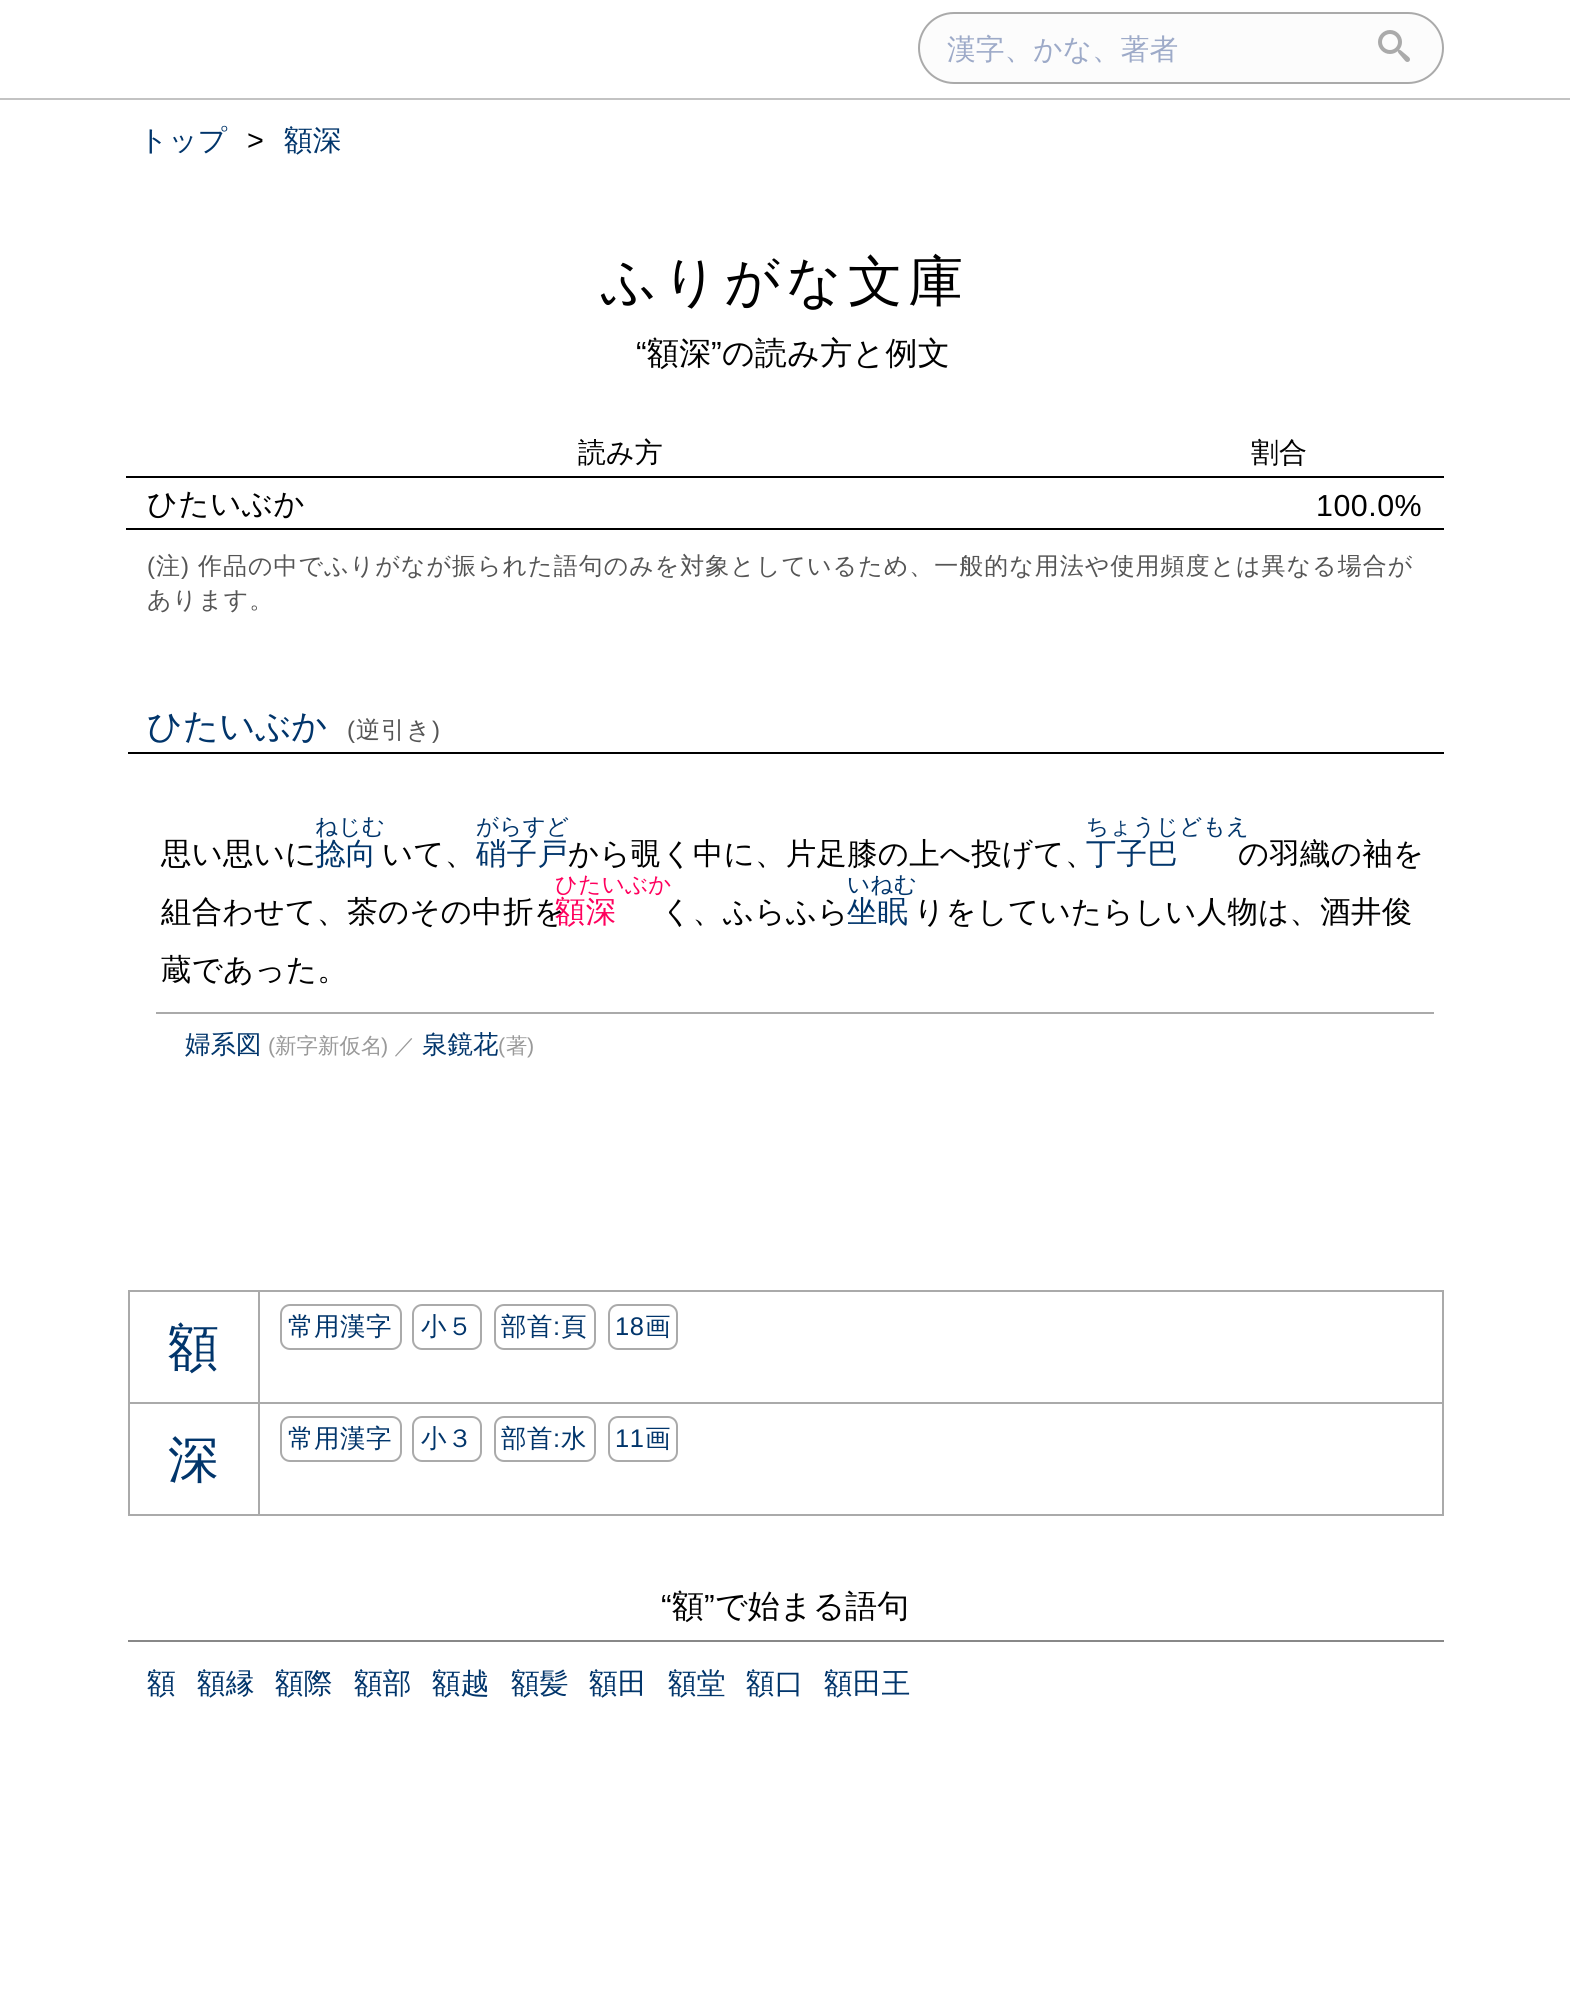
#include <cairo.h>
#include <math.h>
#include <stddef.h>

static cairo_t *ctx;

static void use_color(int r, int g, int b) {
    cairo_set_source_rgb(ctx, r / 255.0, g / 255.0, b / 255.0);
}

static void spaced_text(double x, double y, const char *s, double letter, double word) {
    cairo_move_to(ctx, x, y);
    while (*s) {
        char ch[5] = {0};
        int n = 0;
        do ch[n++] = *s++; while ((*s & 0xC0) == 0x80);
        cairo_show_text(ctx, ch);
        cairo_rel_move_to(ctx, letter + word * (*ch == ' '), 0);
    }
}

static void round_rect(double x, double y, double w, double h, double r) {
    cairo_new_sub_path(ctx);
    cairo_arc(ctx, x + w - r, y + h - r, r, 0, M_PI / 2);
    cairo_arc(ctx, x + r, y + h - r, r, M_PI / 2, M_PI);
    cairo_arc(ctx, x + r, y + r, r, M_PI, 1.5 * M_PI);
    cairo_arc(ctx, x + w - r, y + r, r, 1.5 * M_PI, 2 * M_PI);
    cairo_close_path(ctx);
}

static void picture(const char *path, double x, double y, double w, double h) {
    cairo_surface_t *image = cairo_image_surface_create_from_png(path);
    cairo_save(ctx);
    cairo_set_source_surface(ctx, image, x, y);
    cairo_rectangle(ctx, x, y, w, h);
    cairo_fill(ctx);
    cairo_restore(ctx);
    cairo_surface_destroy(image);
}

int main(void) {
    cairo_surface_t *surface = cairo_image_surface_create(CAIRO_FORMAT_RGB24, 1570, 1990);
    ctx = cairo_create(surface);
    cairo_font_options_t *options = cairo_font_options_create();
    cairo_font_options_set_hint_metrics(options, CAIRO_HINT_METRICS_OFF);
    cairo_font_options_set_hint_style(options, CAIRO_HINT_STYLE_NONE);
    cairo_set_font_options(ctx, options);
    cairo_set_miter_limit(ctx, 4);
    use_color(255, 255, 255);
    cairo_paint(ctx);
    use_color(195, 195, 195);
    cairo_rectangle(ctx, 0, 98, 1570, 2);
    cairo_fill(ctx);
    use_color(252, 252, 252);
    round_rect(919, 13, 524, 70, 35);
    cairo_fill_preserve(ctx);
    use_color(170, 170, 170);
    cairo_stroke(ctx);
    cairo_select_font_face(ctx, "WenQuanYi Zen Hei Medium", CAIRO_FONT_SLANT_NORMAL, CAIRO_FONT_WEIGHT_NORMAL);
    cairo_set_font_size(ctx, 28.75);
    use_color(157, 170, 200);
    cairo_move_to(ctx, 947, 59);
    cairo_show_text(ctx, "漢字、かな、著者");
    picture("img1.png", 1378, 30, 32, 32);
    use_color(1, 53, 107);
    cairo_move_to(ctx, 139, 150);
    cairo_show_text(ctx, "トップ");
    cairo_select_font_face(ctx, "Liberation Sans", CAIRO_FONT_SLANT_NORMAL, CAIRO_FONT_WEIGHT_NORMAL);
    use_color(0, 0, 0);
    cairo_move_to(ctx, 247, 150);
    cairo_show_text(ctx, ">");
    cairo_select_font_face(ctx, "WenQuanYi Zen Hei Medium", CAIRO_FONT_SLANT_NORMAL, CAIRO_FONT_WEIGHT_NORMAL);
    use_color(1, 53, 107);
    cairo_move_to(ctx, 284, 150);
    cairo_show_text(ctx, "額深");
    cairo_set_font_size(ctx, 54.5);
    use_color(0, 0, 0);
    spaced_text(601, 300, "ふりがな文庫", 6, 0);
    cairo_select_font_face(ctx, "Liberation Sans", CAIRO_FONT_SLANT_NORMAL, CAIRO_FONT_WEIGHT_NORMAL);
    cairo_set_font_size(ctx, 32);
    spaced_text(636, 364, "“", 0.25, 0);
    cairo_select_font_face(ctx, "WenQuanYi Zen Hei Medium", CAIRO_FONT_SLANT_NORMAL, CAIRO_FONT_WEIGHT_NORMAL);
    spaced_text(647, 364, "額深", 0.25, 0);
    cairo_select_font_face(ctx, "Liberation Sans", CAIRO_FONT_SLANT_NORMAL, CAIRO_FONT_WEIGHT_NORMAL);
    spaced_text(711, 364, "”", 0.25, 0);
    cairo_select_font_face(ctx, "WenQuanYi Zen Hei Medium", CAIRO_FONT_SLANT_NORMAL, CAIRO_FONT_WEIGHT_NORMAL);
    spaced_text(722, 364, "の読み方と例文", 0.25, 0);
    cairo_rectangle(ctx, 126, 476, 1318, 2);
    cairo_fill(ctx);
    cairo_set_font_size(ctx, 28);
    cairo_move_to(ctx, 578, 462);
    cairo_show_text(ctx, "読み方");
    cairo_move_to(ctx, 1251, 462);
    cairo_show_text(ctx, "割合");
    cairo_rectangle(ctx, 126, 528, 1318, 2);
    cairo_fill(ctx);
    cairo_set_font_size(ctx, 30.4);
    spaced_text(147, 514, "ひたいぶか", 0.5, 0);
    cairo_select_font_face(ctx, "Liberation Sans", CAIRO_FONT_SLANT_NORMAL, CAIRO_FONT_WEIGHT_NORMAL);
    spaced_text(1316, 516, "100.0%", 0.5, 0);
    cairo_set_font_size(ctx, 24);
    use_color(85, 85, 85);
    spaced_text(147, 574, "(", 1, 0);
    cairo_select_font_face(ctx, "WenQuanYi Zen Hei Medium", CAIRO_FONT_SLANT_NORMAL, CAIRO_FONT_WEIGHT_NORMAL);
    spaced_text(156, 574, "注", 1, 0);
    cairo_select_font_face(ctx, "Liberation Sans", CAIRO_FONT_SLANT_NORMAL, CAIRO_FONT_WEIGHT_NORMAL);
    spaced_text(181, 574, ")", 1, 0);
    cairo_select_font_face(ctx, "WenQuanYi Zen Hei Medium", CAIRO_FONT_SLANT_NORMAL, CAIRO_FONT_WEIGHT_NORMAL);
    spaced_text(198, 574, "作品の中でふりがなが振られた語句のみを対象としているため、一般的な用法や使用頻度とは異なる場合が", 1, 0);
    spaced_text(147, 608, "あります。", 1, 0);
    use_color(0, 0, 0);
    cairo_rectangle(ctx, 128, 752, 1316, 2);
    cairo_fill(ctx);
    cairo_set_font_size(ctx, 35.25);
    use_color(1, 53, 107);
    cairo_move_to(ctx, 147, 738);
    cairo_show_text(ctx, "ひたいぶか");
    cairo_select_font_face(ctx, "Liberation Sans", CAIRO_FONT_SLANT_NORMAL, CAIRO_FONT_WEIGHT_NORMAL);
    cairo_set_font_size(ctx, 24);
    use_color(85, 85, 85);
    spaced_text(347, 738, "(", 1, 0);
    cairo_select_font_face(ctx, "WenQuanYi Zen Hei Medium", CAIRO_FONT_SLANT_NORMAL, CAIRO_FONT_WEIGHT_NORMAL);
    spaced_text(356, 738, "逆引き", 1, 0);
    cairo_select_font_face(ctx, "Liberation Sans", CAIRO_FONT_SLANT_NORMAL, CAIRO_FONT_WEIGHT_NORMAL);
    spaced_text(432, 738, ")", 1, 0);
    use_color(170, 170, 170);
    cairo_rectangle(ctx, 156, 1012, 1278, 2);
    cairo_fill(ctx);
    cairo_select_font_face(ctx, "WenQuanYi Zen Hei Medium", CAIRO_FONT_SLANT_NORMAL, CAIRO_FONT_WEIGHT_NORMAL);
    cairo_set_font_size(ctx, 30.4);
    use_color(0, 0, 0);
    spaced_text(161, 864, "思い思いに", 0.3, 0);
    cairo_set_font_size(ctx, 22.5);
    use_color(1, 53, 107);
    spaced_text(315, 834, "ねじむ", 0.3, 0);
    cairo_set_font_size(ctx, 30.4);
    spaced_text(315, 864, "捻向", 0.3, 0);
    use_color(0, 0, 0);
    spaced_text(382, 864, "いて、", 0.3, 0);
    cairo_set_font_size(ctx, 22.5);
    use_color(1, 53, 107);
    spaced_text(476, 834, "がらすど", 0.3, 0);
    cairo_set_font_size(ctx, 30.4);
    spaced_text(476, 864, "硝子戸", 0.3, 0);
    use_color(0, 0, 0);
    spaced_text(568, 864, "から覗く中に、片足膝の上へ投げて、", 0.3, 0);
    cairo_set_font_size(ctx, 22.5);
    use_color(1, 53, 107);
    spaced_text(1086, 834, "ちょうじどもえ", 0.3, 0);
    cairo_set_font_size(ctx, 30.4);
    spaced_text(1086, 864, "丁子巴", 0.3, 0);
    use_color(0, 0, 0);
    spaced_text(1238, 864, "の羽織の袖を", 0.3, 0);
    spaced_text(161, 922, "組合わせて、茶のその中折を", 0.3, 0);
    cairo_set_font_size(ctx, 22.5);
    use_color(255, 0, 93);
    spaced_text(555, 892, "ひたいぶか", 0.3, 0);
    cairo_set_font_size(ctx, 30.4);
    spaced_text(555, 922, "額深", 0.3, 0);
    use_color(0, 0, 0);
    spaced_text(661, 922, "く、ふらふら", 0.3, 0);
    cairo_set_font_size(ctx, 22.5);
    use_color(1, 53, 107);
    spaced_text(847, 892, "いねむ", 0.3, 0);
    cairo_set_font_size(ctx, 30.4);
    spaced_text(847, 922, "坐眠", 0.3, 0);
    use_color(0, 0, 0);
    spaced_text(914, 922, "りをしていたらしい人物は、酒井俊", 0.3, 0);
    spaced_text(161, 980, "蔵であった。", 0.3, 0);
    cairo_set_font_size(ctx, 25.5);
    use_color(1, 53, 107);
    cairo_move_to(ctx, 185, 1053);
    cairo_show_text(ctx, "婦系図");
    cairo_select_font_face(ctx, "Liberation Sans", CAIRO_FONT_SLANT_NORMAL, CAIRO_FONT_WEIGHT_NORMAL);
    cairo_set_font_size(ctx, 21.5);
    use_color(153, 153, 153);
    cairo_move_to(ctx, 268, 1053);
    cairo_show_text(ctx, "(");
    cairo_select_font_face(ctx, "WenQuanYi Zen Hei Medium", CAIRO_FONT_SLANT_NORMAL, CAIRO_FONT_WEIGHT_NORMAL);
    cairo_move_to(ctx, 275, 1053);
    cairo_show_text(ctx, "新字新仮名");
    cairo_select_font_face(ctx, "Liberation Sans", CAIRO_FONT_SLANT_NORMAL, CAIRO_FONT_WEIGHT_NORMAL);
    cairo_move_to(ctx, 381, 1053);
    cairo_show_text(ctx, ")");
    cairo_select_font_face(ctx, "WenQuanYi Zen Hei Medium", CAIRO_FONT_SLANT_NORMAL, CAIRO_FONT_WEIGHT_NORMAL);
    cairo_move_to(ctx, 394, 1053);
    cairo_show_text(ctx, "／");
    cairo_set_font_size(ctx, 25.5);
    use_color(1, 53, 107);
    cairo_move_to(ctx, 422, 1053);
    cairo_show_text(ctx, "泉鏡花");
    cairo_select_font_face(ctx, "Liberation Sans", CAIRO_FONT_SLANT_NORMAL, CAIRO_FONT_WEIGHT_NORMAL);
    cairo_set_font_size(ctx, 21.5);
    use_color(153, 153, 153);
    cairo_move_to(ctx, 498, 1053);
    cairo_show_text(ctx, "(");
    cairo_select_font_face(ctx, "WenQuanYi Zen Hei Medium", CAIRO_FONT_SLANT_NORMAL, CAIRO_FONT_WEIGHT_NORMAL);
    cairo_move_to(ctx, 506, 1053);
    cairo_show_text(ctx, "著");
    cairo_select_font_face(ctx, "Liberation Sans", CAIRO_FONT_SLANT_NORMAL, CAIRO_FONT_WEIGHT_NORMAL);
    cairo_move_to(ctx, 527, 1053);
    cairo_show_text(ctx, ")");
    use_color(170, 170, 170);
    cairo_rectangle(ctx, 128, 1290, 1316, 2);
    cairo_fill(ctx);
    cairo_rectangle(ctx, 128, 1402, 1316, 2);
    cairo_fill(ctx);
    cairo_rectangle(ctx, 1442, 1402, 2, 114);
    cairo_fill(ctx);
    cairo_rectangle(ctx, 1442, 1290, 2, 114);
    cairo_fill(ctx);
    cairo_rectangle(ctx, 128, 1514, 1316, 2);
    cairo_fill(ctx);
    cairo_rectangle(ctx, 128, 1402, 2, 114);
    cairo_fill(ctx);
    cairo_rectangle(ctx, 128, 1290, 2, 114);
    cairo_fill(ctx);
    cairo_select_font_face(ctx, "WenQuanYi Zen Hei Medium", CAIRO_FONT_SLANT_NORMAL, CAIRO_FONT_WEIGHT_NORMAL);
    cairo_set_font_size(ctx, 51);
    use_color(1, 53, 107);
    spaced_text(168, 1365, "額", 0.5, 0);
    round_rect(281, 1305, 120, 44, 9);
    use_color(170, 170, 170);
    cairo_stroke(ctx);
    cairo_set_font_size(ctx, 25.5);
    use_color(1, 53, 107);
    spaced_text(288, 1335, "常用漢字", 0.5, 0);
    round_rect(413, 1305, 68, 44, 9);
    use_color(170, 170, 170);
    cairo_stroke(ctx);
    use_color(1, 53, 107);
    spaced_text(421, 1335, "小５", 0.5, 0);
    round_rect(495, 1305, 100, 44, 9);
    use_color(170, 170, 170);
    cairo_stroke(ctx);
    use_color(1, 53, 107);
    spaced_text(501, 1335, "部首", 0.5, 0);
    cairo_select_font_face(ctx, "Liberation Sans", CAIRO_FONT_SLANT_NORMAL, CAIRO_FONT_WEIGHT_NORMAL);
    spaced_text(553, 1335, ":", 0.5, 0);
    cairo_select_font_face(ctx, "WenQuanYi Zen Hei Medium", CAIRO_FONT_SLANT_NORMAL, CAIRO_FONT_WEIGHT_NORMAL);
    spaced_text(561, 1335, "⾴", 0.5, 0);
    round_rect(609, 1305, 68, 44, 9);
    use_color(170, 170, 170);
    cairo_stroke(ctx);
    cairo_select_font_face(ctx, "Liberation Sans", CAIRO_FONT_SLANT_NORMAL, CAIRO_FONT_WEIGHT_NORMAL);
    use_color(1, 53, 107);
    spaced_text(615, 1335, "18", 0.5, 0);
    cairo_select_font_face(ctx, "WenQuanYi Zen Hei Medium", CAIRO_FONT_SLANT_NORMAL, CAIRO_FONT_WEIGHT_NORMAL);
    spaced_text(645, 1335, "画", 0.5, 0);
    use_color(170, 170, 170);
    cairo_rectangle(ctx, 258, 1290, 2, 226);
    cairo_fill(ctx);
    cairo_set_font_size(ctx, 51);
    use_color(1, 53, 107);
    spaced_text(168, 1477, "深", 0.5, 0);
    round_rect(281, 1417, 120, 44, 9);
    use_color(170, 170, 170);
    cairo_stroke(ctx);
    cairo_set_font_size(ctx, 25.5);
    use_color(1, 53, 107);
    spaced_text(288, 1447, "常用漢字", 0.5, 0);
    round_rect(413, 1417, 68, 44, 9);
    use_color(170, 170, 170);
    cairo_stroke(ctx);
    use_color(1, 53, 107);
    spaced_text(421, 1447, "小３", 0.5, 0);
    round_rect(495, 1417, 100, 44, 9);
    use_color(170, 170, 170);
    cairo_stroke(ctx);
    use_color(1, 53, 107);
    spaced_text(501, 1447, "部首", 0.5, 0);
    cairo_select_font_face(ctx, "Liberation Sans", CAIRO_FONT_SLANT_NORMAL, CAIRO_FONT_WEIGHT_NORMAL);
    spaced_text(553, 1447, ":", 0.5, 0);
    cairo_select_font_face(ctx, "WenQuanYi Zen Hei Medium", CAIRO_FONT_SLANT_NORMAL, CAIRO_FONT_WEIGHT_NORMAL);
    spaced_text(561, 1447, "⽔", 0.5, 0);
    round_rect(609, 1417, 68, 44, 9);
    use_color(170, 170, 170);
    cairo_stroke(ctx);
    cairo_select_font_face(ctx, "Liberation Sans", CAIRO_FONT_SLANT_NORMAL, CAIRO_FONT_WEIGHT_NORMAL);
    use_color(1, 53, 107);
    spaced_text(615, 1447, "11", 0.5, 0);
    cairo_select_font_face(ctx, "WenQuanYi Zen Hei Medium", CAIRO_FONT_SLANT_NORMAL, CAIRO_FONT_WEIGHT_NORMAL);
    spaced_text(645, 1447, "画", 0.5, 0);
    use_color(136, 136, 136);
    cairo_rectangle(ctx, 128, 1640, 1316, 2);
    cairo_fill(ctx);
    cairo_select_font_face(ctx, "Liberation Sans", CAIRO_FONT_SLANT_NORMAL, CAIRO_FONT_WEIGHT_NORMAL);
    cairo_set_font_size(ctx, 32);
    use_color(0, 0, 0);
    cairo_move_to(ctx, 661, 1617);
    cairo_show_text(ctx, "“");
    cairo_select_font_face(ctx, "WenQuanYi Zen Hei Medium", CAIRO_FONT_SLANT_NORMAL, CAIRO_FONT_WEIGHT_NORMAL);
    cairo_move_to(ctx, 672, 1617);
    cairo_show_text(ctx, "額");
    cairo_select_font_face(ctx, "Liberation Sans", CAIRO_FONT_SLANT_NORMAL, CAIRO_FONT_WEIGHT_NORMAL);
    cairo_move_to(ctx, 704, 1617);
    cairo_show_text(ctx, "”");
    cairo_select_font_face(ctx, "WenQuanYi Zen Hei Medium", CAIRO_FONT_SLANT_NORMAL, CAIRO_FONT_WEIGHT_NORMAL);
    cairo_move_to(ctx, 715, 1617);
    cairo_show_text(ctx, "で始まる語句");
    cairo_set_font_size(ctx, 28.75);
    use_color(1, 53, 107);
    cairo_move_to(ctx, 147, 1693);
    cairo_show_text(ctx, "額");
    cairo_move_to(ctx, 197, 1693);
    cairo_show_text(ctx, "額縁");
    cairo_move_to(ctx, 275, 1693);
    cairo_show_text(ctx, "額際");
    cairo_move_to(ctx, 354, 1693);
    cairo_show_text(ctx, "額部");
    cairo_move_to(ctx, 432, 1693);
    cairo_show_text(ctx, "額越");
    cairo_move_to(ctx, 511, 1693);
    cairo_show_text(ctx, "額髪");
    cairo_move_to(ctx, 589, 1693);
    cairo_show_text(ctx, "額田");
    cairo_move_to(ctx, 668, 1693);
    cairo_show_text(ctx, "額堂");
    cairo_move_to(ctx, 746, 1693);
    cairo_show_text(ctx, "額口");
    cairo_move_to(ctx, 824, 1693);
    cairo_show_text(ctx, "額田王");
    cairo_surface_write_to_png(surface, "result.png");
    cairo_font_options_destroy(options);
    cairo_destroy(ctx);
    cairo_surface_destroy(surface);
    return 0;
}
